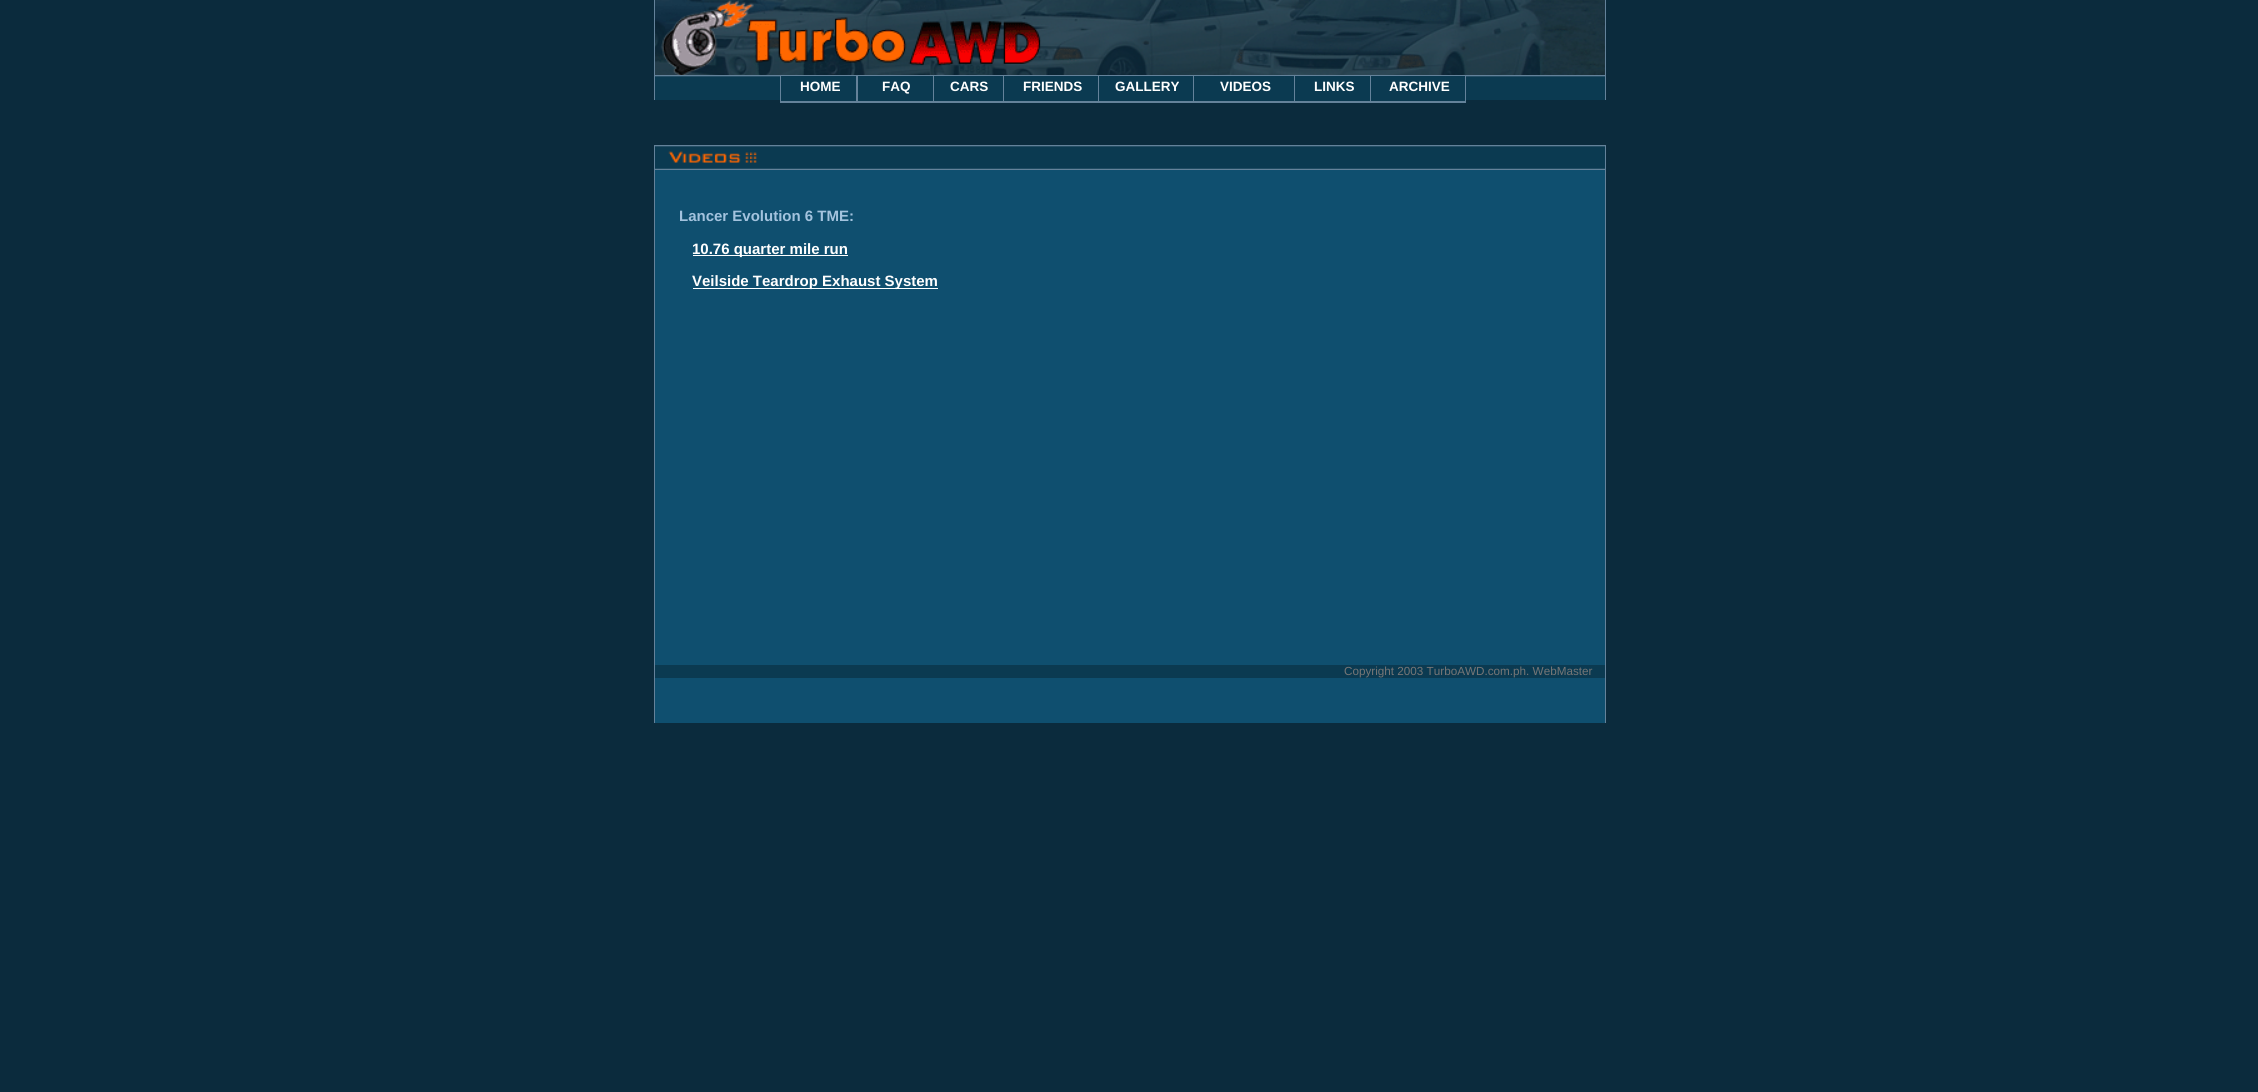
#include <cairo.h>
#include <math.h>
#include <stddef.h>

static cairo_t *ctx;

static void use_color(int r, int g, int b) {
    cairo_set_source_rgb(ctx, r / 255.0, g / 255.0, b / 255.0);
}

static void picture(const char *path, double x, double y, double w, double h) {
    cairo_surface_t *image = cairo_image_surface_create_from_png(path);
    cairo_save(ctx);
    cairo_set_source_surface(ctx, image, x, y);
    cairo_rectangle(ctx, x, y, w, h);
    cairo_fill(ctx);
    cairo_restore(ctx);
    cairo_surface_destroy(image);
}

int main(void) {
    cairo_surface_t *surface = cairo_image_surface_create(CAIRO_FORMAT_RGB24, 2258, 1092);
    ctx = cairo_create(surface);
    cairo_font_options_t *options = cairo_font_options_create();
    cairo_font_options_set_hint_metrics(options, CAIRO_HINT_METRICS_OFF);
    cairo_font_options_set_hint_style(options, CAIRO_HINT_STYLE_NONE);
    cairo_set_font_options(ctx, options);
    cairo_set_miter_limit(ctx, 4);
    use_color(11, 43, 61);
    cairo_paint(ctx);
    use_color(11, 58, 81);
    cairo_rectangle(ctx, 655, 77, 950, 23);
    cairo_fill(ctx);
    picture("img2.png", 655, 75, 950, 2);
    use_color(100, 130, 154);
    cairo_rectangle(ctx, 780, 76, 686, 27);
    cairo_fill(ctx);
    use_color(11, 58, 81);
    cairo_rectangle(ctx, 781, 76, 75, 25);
    cairo_fill(ctx);
    cairo_select_font_face(ctx, "Liberation Sans", CAIRO_FONT_SLANT_NORMAL, CAIRO_FONT_WEIGHT_BOLD);
    cairo_set_font_size(ctx, 13.5);
    use_color(255, 255, 255);
    cairo_move_to(ctx, 800, 91);
    cairo_show_text(ctx, "HOME");
    use_color(11, 58, 81);
    cairo_rectangle(ctx, 858, 76, 75, 25);
    cairo_fill(ctx);
    use_color(255, 255, 255);
    cairo_move_to(ctx, 882, 91);
    cairo_show_text(ctx, "FAQ");
    use_color(11, 58, 81);
    cairo_rectangle(ctx, 934, 76, 69, 25);
    cairo_fill(ctx);
    use_color(255, 255, 255);
    cairo_move_to(ctx, 950, 91);
    cairo_show_text(ctx, "CARS");
    use_color(11, 58, 81);
    cairo_rectangle(ctx, 1004, 76, 94, 25);
    cairo_fill(ctx);
    use_color(255, 255, 255);
    cairo_move_to(ctx, 1023, 91);
    cairo_show_text(ctx, "FRIENDS");
    use_color(11, 58, 81);
    cairo_rectangle(ctx, 1099, 76, 94, 25);
    cairo_fill(ctx);
    use_color(255, 255, 255);
    cairo_move_to(ctx, 1115, 91);
    cairo_show_text(ctx, "GALLERY");
    use_color(11, 58, 81);
    cairo_rectangle(ctx, 1194, 76, 100, 25);
    cairo_fill(ctx);
    use_color(255, 255, 255);
    cairo_move_to(ctx, 1220, 91);
    cairo_show_text(ctx, "VIDEOS");
    use_color(11, 58, 81);
    cairo_rectangle(ctx, 1295, 76, 75, 25);
    cairo_fill(ctx);
    use_color(255, 255, 255);
    cairo_move_to(ctx, 1314, 91);
    cairo_show_text(ctx, "LINKS");
    use_color(11, 58, 81);
    cairo_rectangle(ctx, 1371, 76, 94, 25);
    cairo_fill(ctx);
    use_color(255, 255, 255);
    cairo_move_to(ctx, 1389, 91);
    cairo_show_text(ctx, "ARCHIVE");
    use_color(100, 130, 154);
    cairo_rectangle(ctx, 654, 0, 1, 100);
    cairo_fill(ctx);
    picture("img1.png", 655, 0, 950, 75);
    cairo_rectangle(ctx, 1605, 0, 1, 100);
    cairo_fill(ctx);
    cairo_rectangle(ctx, 654, 145, 1, 578);
    cairo_fill(ctx);
    use_color(15, 79, 111);
    cairo_rectangle(ctx, 655, 170, 950, 553);
    cairo_fill(ctx);
    picture("img3.png", 655, 145, 950, 25);
    cairo_set_font_size(ctx, 15);
    use_color(163, 195, 222);
    cairo_move_to(ctx, 679, 221);
    cairo_show_text(ctx, "Lancer Evolution 6 TME:");
    use_color(255, 255, 255);
    cairo_rectangle(ctx, 693, 255, 155, 1);
    cairo_fill(ctx);
    cairo_move_to(ctx, 692, 254);
    cairo_show_text(ctx, "10.76 quarter mile run");
    cairo_rectangle(ctx, 693, 288, 245, 1);
    cairo_fill(ctx);
    cairo_move_to(ctx, 692, 286);
    cairo_show_text(ctx, "Veilside Teardrop Exhaust System");
    use_color(11, 58, 81);
    cairo_rectangle(ctx, 655, 665, 950, 13);
    cairo_fill(ctx);
    cairo_select_font_face(ctx, "Liberation Sans", CAIRO_FONT_SLANT_NORMAL, CAIRO_FONT_WEIGHT_NORMAL);
    cairo_set_font_size(ctx, 11.7);
    use_color(118, 118, 118);
    cairo_move_to(ctx, 1344, 675);
    cairo_show_text(ctx, "Copyright 2003 TurboAWD.com.ph. WebMaster");
    use_color(100, 130, 154);
    cairo_rectangle(ctx, 1605, 145, 1, 578);
    cairo_fill(ctx);
    cairo_surface_write_to_png(surface, "result.png");
    cairo_font_options_destroy(options);
    cairo_destroy(ctx);
    cairo_surface_destroy(surface);
    return 0;
}
